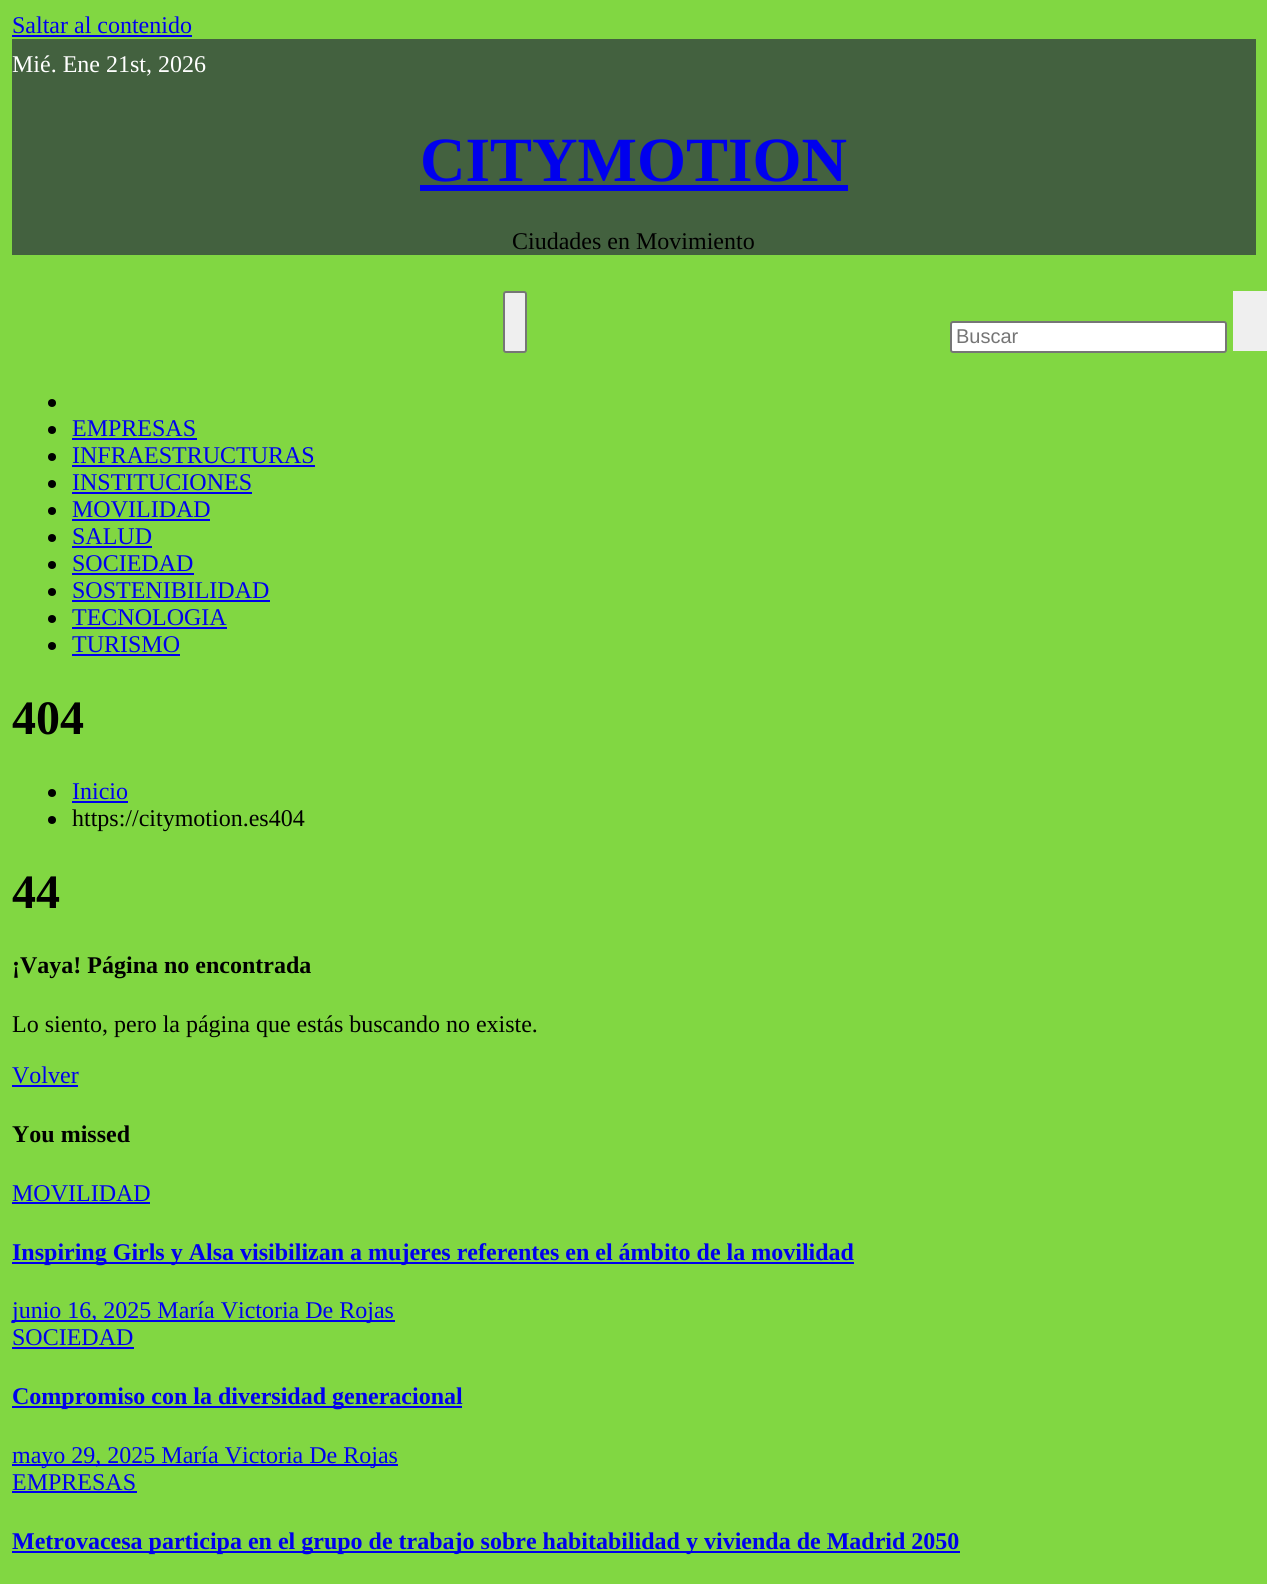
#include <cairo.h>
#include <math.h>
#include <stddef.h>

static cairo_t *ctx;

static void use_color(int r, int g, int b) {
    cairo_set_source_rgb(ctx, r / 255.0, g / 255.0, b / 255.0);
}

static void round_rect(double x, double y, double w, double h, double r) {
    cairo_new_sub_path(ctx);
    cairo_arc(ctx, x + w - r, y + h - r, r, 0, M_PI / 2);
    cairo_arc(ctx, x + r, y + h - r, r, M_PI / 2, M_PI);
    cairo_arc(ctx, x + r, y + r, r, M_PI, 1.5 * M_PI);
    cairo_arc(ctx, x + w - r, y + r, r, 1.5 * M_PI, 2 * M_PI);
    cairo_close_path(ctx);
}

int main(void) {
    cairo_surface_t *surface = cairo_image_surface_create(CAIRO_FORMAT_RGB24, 1267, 1584);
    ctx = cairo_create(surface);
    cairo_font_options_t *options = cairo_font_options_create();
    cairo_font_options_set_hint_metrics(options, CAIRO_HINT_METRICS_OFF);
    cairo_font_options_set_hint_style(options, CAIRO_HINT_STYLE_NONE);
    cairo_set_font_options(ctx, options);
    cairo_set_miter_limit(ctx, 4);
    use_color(129, 215, 66);
    cairo_paint(ctx);
    cairo_select_font_face(ctx, "Liberation Serif", CAIRO_FONT_SLANT_NORMAL, CAIRO_FONT_WEIGHT_NORMAL);
    cairo_set_font_size(ctx, 24);
    use_color(0, 0, 238);
    cairo_move_to(ctx, 12, 33);
    cairo_show_text(ctx, "Saltar al contenido");
    cairo_rectangle(ctx, 12, 35, 180, 2);
    cairo_fill(ctx);
    use_color(67, 97, 63);
    cairo_rectangle(ctx, 12, 39, 1244, 216);
    cairo_fill(ctx);
    use_color(255, 255, 255);
    cairo_move_to(ctx, 12, 72);
    cairo_show_text(ctx, "Mié. Ene 21st, 2026");
    cairo_select_font_face(ctx, "Liberation Serif", CAIRO_FONT_SLANT_NORMAL, CAIRO_FONT_WEIGHT_BOLD);
    cairo_set_font_size(ctx, 63);
    use_color(0, 0, 238);
    cairo_move_to(ctx, 420, 181);
    cairo_show_text(ctx, "CITYMOTION");
    cairo_rectangle(ctx, 420, 185, 428, 6);
    cairo_fill(ctx);
    cairo_select_font_face(ctx, "Liberation Serif", CAIRO_FONT_SLANT_NORMAL, CAIRO_FONT_WEIGHT_NORMAL);
    cairo_set_font_size(ctx, 24);
    use_color(0, 0, 0);
    cairo_move_to(ctx, 512, 249);
    cairo_show_text(ctx, "Ciudades en Movimiento");
    use_color(239, 239, 239);
    round_rect(504, 292, 22, 60, 2);
    cairo_fill_preserve(ctx);
    use_color(118, 118, 118);
    cairo_stroke(ctx);
    use_color(255, 255, 255);
    round_rect(951, 322, 275, 30, 2);
    cairo_fill_preserve(ctx);
    use_color(118, 118, 118);
    cairo_stroke(ctx);
    cairo_select_font_face(ctx, "Liberation Sans", CAIRO_FONT_SLANT_NORMAL, CAIRO_FONT_WEIGHT_NORMAL);
    cairo_set_font_size(ctx, 20);
    use_color(117, 117, 117);
    cairo_move_to(ctx, 956, 343);
    cairo_show_text(ctx, "Buscar");
    use_color(239, 239, 239);
    cairo_rectangle(ctx, 1233, 291, 34, 60);
    cairo_fill(ctx);
    use_color(0, 0, 0);
    cairo_arc(ctx, 52, 403, 4, 0, 2 * M_PI);
    cairo_fill(ctx);
    cairo_arc(ctx, 52, 430, 4, 0, 2 * M_PI);
    cairo_fill(ctx);
    cairo_select_font_face(ctx, "Liberation Serif", CAIRO_FONT_SLANT_NORMAL, CAIRO_FONT_WEIGHT_NORMAL);
    cairo_set_font_size(ctx, 24);
    use_color(0, 0, 238);
    cairo_move_to(ctx, 72, 436);
    cairo_show_text(ctx, "EMPRESAS");
    cairo_rectangle(ctx, 72, 438, 125, 2);
    cairo_fill(ctx);
    use_color(0, 0, 0);
    cairo_arc(ctx, 52, 457, 4, 0, 2 * M_PI);
    cairo_fill(ctx);
    use_color(0, 0, 238);
    cairo_move_to(ctx, 72, 463);
    cairo_show_text(ctx, "INFRAESTRUCTURAS");
    cairo_rectangle(ctx, 72, 465, 243, 2);
    cairo_fill(ctx);
    use_color(0, 0, 0);
    cairo_arc(ctx, 52, 484, 4, 0, 2 * M_PI);
    cairo_fill(ctx);
    use_color(0, 0, 238);
    cairo_move_to(ctx, 72, 490);
    cairo_show_text(ctx, "INSTITUCIONES");
    cairo_rectangle(ctx, 72, 492, 180, 2);
    cairo_fill(ctx);
    use_color(0, 0, 0);
    cairo_arc(ctx, 52, 511, 4, 0, 2 * M_PI);
    cairo_fill(ctx);
    use_color(0, 0, 238);
    cairo_move_to(ctx, 72, 517);
    cairo_show_text(ctx, "MOVILIDAD");
    cairo_rectangle(ctx, 72, 519, 138, 2);
    cairo_fill(ctx);
    use_color(0, 0, 0);
    cairo_arc(ctx, 52, 538, 4, 0, 2 * M_PI);
    cairo_fill(ctx);
    use_color(0, 0, 238);
    cairo_move_to(ctx, 72, 544);
    cairo_show_text(ctx, "SALUD");
    cairo_rectangle(ctx, 72, 546, 80, 2);
    cairo_fill(ctx);
    use_color(0, 0, 0);
    cairo_arc(ctx, 52, 565, 4, 0, 2 * M_PI);
    cairo_fill(ctx);
    use_color(0, 0, 238);
    cairo_move_to(ctx, 72, 571);
    cairo_show_text(ctx, "SOCIEDAD");
    cairo_rectangle(ctx, 72, 573, 122, 2);
    cairo_fill(ctx);
    use_color(0, 0, 0);
    cairo_arc(ctx, 52, 592, 4, 0, 2 * M_PI);
    cairo_fill(ctx);
    use_color(0, 0, 238);
    cairo_move_to(ctx, 72, 598);
    cairo_show_text(ctx, "SOSTENIBILIDAD");
    cairo_rectangle(ctx, 72, 600, 198, 2);
    cairo_fill(ctx);
    use_color(0, 0, 0);
    cairo_arc(ctx, 52, 619, 4, 0, 2 * M_PI);
    cairo_fill(ctx);
    use_color(0, 0, 238);
    cairo_move_to(ctx, 72, 625);
    cairo_show_text(ctx, "TECNOLOGIA");
    cairo_rectangle(ctx, 72, 627, 155, 2);
    cairo_fill(ctx);
    use_color(0, 0, 0);
    cairo_arc(ctx, 52, 646, 4, 0, 2 * M_PI);
    cairo_fill(ctx);
    use_color(0, 0, 238);
    cairo_move_to(ctx, 72, 652);
    cairo_show_text(ctx, "TURISMO");
    cairo_rectangle(ctx, 72, 654, 108, 2);
    cairo_fill(ctx);
    cairo_select_font_face(ctx, "Liberation Serif", CAIRO_FONT_SLANT_NORMAL, CAIRO_FONT_WEIGHT_BOLD);
    cairo_set_font_size(ctx, 48);
    use_color(0, 0, 0);
    cairo_move_to(ctx, 12, 734);
    cairo_show_text(ctx, "404");
    cairo_new_path(ctx);
    cairo_arc(ctx, 52, 793, 4, 0, 2 * M_PI);
    cairo_fill(ctx);
    cairo_select_font_face(ctx, "Liberation Serif", CAIRO_FONT_SLANT_NORMAL, CAIRO_FONT_WEIGHT_NORMAL);
    cairo_set_font_size(ctx, 24);
    use_color(0, 0, 238);
    cairo_move_to(ctx, 72, 799);
    cairo_show_text(ctx, "Inicio");
    cairo_rectangle(ctx, 72, 801, 56, 2);
    cairo_fill(ctx);
    use_color(0, 0, 0);
    cairo_arc(ctx, 52, 820, 4, 0, 2 * M_PI);
    cairo_fill(ctx);
    cairo_move_to(ctx, 72, 826);
    cairo_show_text(ctx, "https://citymotion.es404");
    cairo_select_font_face(ctx, "Liberation Serif", CAIRO_FONT_SLANT_NORMAL, CAIRO_FONT_WEIGHT_BOLD);
    cairo_set_font_size(ctx, 48);
    cairo_move_to(ctx, 12, 908);
    cairo_show_text(ctx, "44");
    cairo_set_font_size(ctx, 24);
    cairo_move_to(ctx, 12, 973);
    cairo_show_text(ctx, "¡Vaya! Página no encontrada");
    cairo_select_font_face(ctx, "Liberation Serif", CAIRO_FONT_SLANT_NORMAL, CAIRO_FONT_WEIGHT_NORMAL);
    cairo_move_to(ctx, 12, 1032);
    cairo_show_text(ctx, "Lo siento, pero la página que estás buscando no existe.");
    use_color(0, 0, 238);
    cairo_move_to(ctx, 12, 1083);
    cairo_show_text(ctx, "Volver");
    cairo_rectangle(ctx, 12, 1085, 66, 2);
    cairo_fill(ctx);
    cairo_select_font_face(ctx, "Liberation Serif", CAIRO_FONT_SLANT_NORMAL, CAIRO_FONT_WEIGHT_BOLD);
    use_color(0, 0, 0);
    cairo_move_to(ctx, 12, 1142);
    cairo_show_text(ctx, "You missed");
    cairo_select_font_face(ctx, "Liberation Serif", CAIRO_FONT_SLANT_NORMAL, CAIRO_FONT_WEIGHT_NORMAL);
    use_color(0, 0, 238);
    cairo_move_to(ctx, 12, 1201);
    cairo_show_text(ctx, "MOVILIDAD");
    cairo_rectangle(ctx, 12, 1202, 138, 2);
    cairo_fill(ctx);
    cairo_rectangle(ctx, 12, 1262, 842, 2);
    cairo_fill(ctx);
    cairo_select_font_face(ctx, "Liberation Serif", CAIRO_FONT_SLANT_NORMAL, CAIRO_FONT_WEIGHT_BOLD);
    cairo_move_to(ctx, 12, 1260);
    cairo_show_text(ctx, "Inspiring Girls y Alsa visibilizan a mujeres referentes en el ámbito de la movilidad");
    cairo_rectangle(ctx, 12, 1320, 383, 2);
    cairo_fill(ctx);
    cairo_select_font_face(ctx, "Liberation Serif", CAIRO_FONT_SLANT_NORMAL, CAIRO_FONT_WEIGHT_NORMAL);
    cairo_move_to(ctx, 12, 1318);
    cairo_show_text(ctx, "junio 16, 2025 María Victoria De Rojas");
    cairo_move_to(ctx, 12, 1345);
    cairo_show_text(ctx, "SOCIEDAD");
    cairo_rectangle(ctx, 12, 1347, 122, 2);
    cairo_fill(ctx);
    cairo_rectangle(ctx, 12, 1406, 450, 2);
    cairo_fill(ctx);
    cairo_select_font_face(ctx, "Liberation Serif", CAIRO_FONT_SLANT_NORMAL, CAIRO_FONT_WEIGHT_BOLD);
    cairo_move_to(ctx, 12, 1404);
    cairo_show_text(ctx, "Compromiso con la diversidad generacional");
    cairo_rectangle(ctx, 12, 1464, 386, 2);
    cairo_fill(ctx);
    cairo_select_font_face(ctx, "Liberation Serif", CAIRO_FONT_SLANT_NORMAL, CAIRO_FONT_WEIGHT_NORMAL);
    cairo_move_to(ctx, 12, 1463);
    cairo_show_text(ctx, "mayo 29, 2025 María Victoria De Rojas");
    cairo_move_to(ctx, 12, 1490);
    cairo_show_text(ctx, "EMPRESAS");
    cairo_rectangle(ctx, 12, 1491, 125, 2);
    cairo_fill(ctx);
    cairo_rectangle(ctx, 12, 1551, 948, 2);
    cairo_fill(ctx);
    cairo_select_font_face(ctx, "Liberation Serif", CAIRO_FONT_SLANT_NORMAL, CAIRO_FONT_WEIGHT_BOLD);
    cairo_move_to(ctx, 12, 1549);
    cairo_show_text(ctx, "Metrovacesa participa en el grupo de trabajo sobre habitabilidad y vivienda de Madrid 2050");
    cairo_surface_write_to_png(surface, "result.png");
    cairo_font_options_destroy(options);
    cairo_destroy(ctx);
    cairo_surface_destroy(surface);
    return 0;
}
